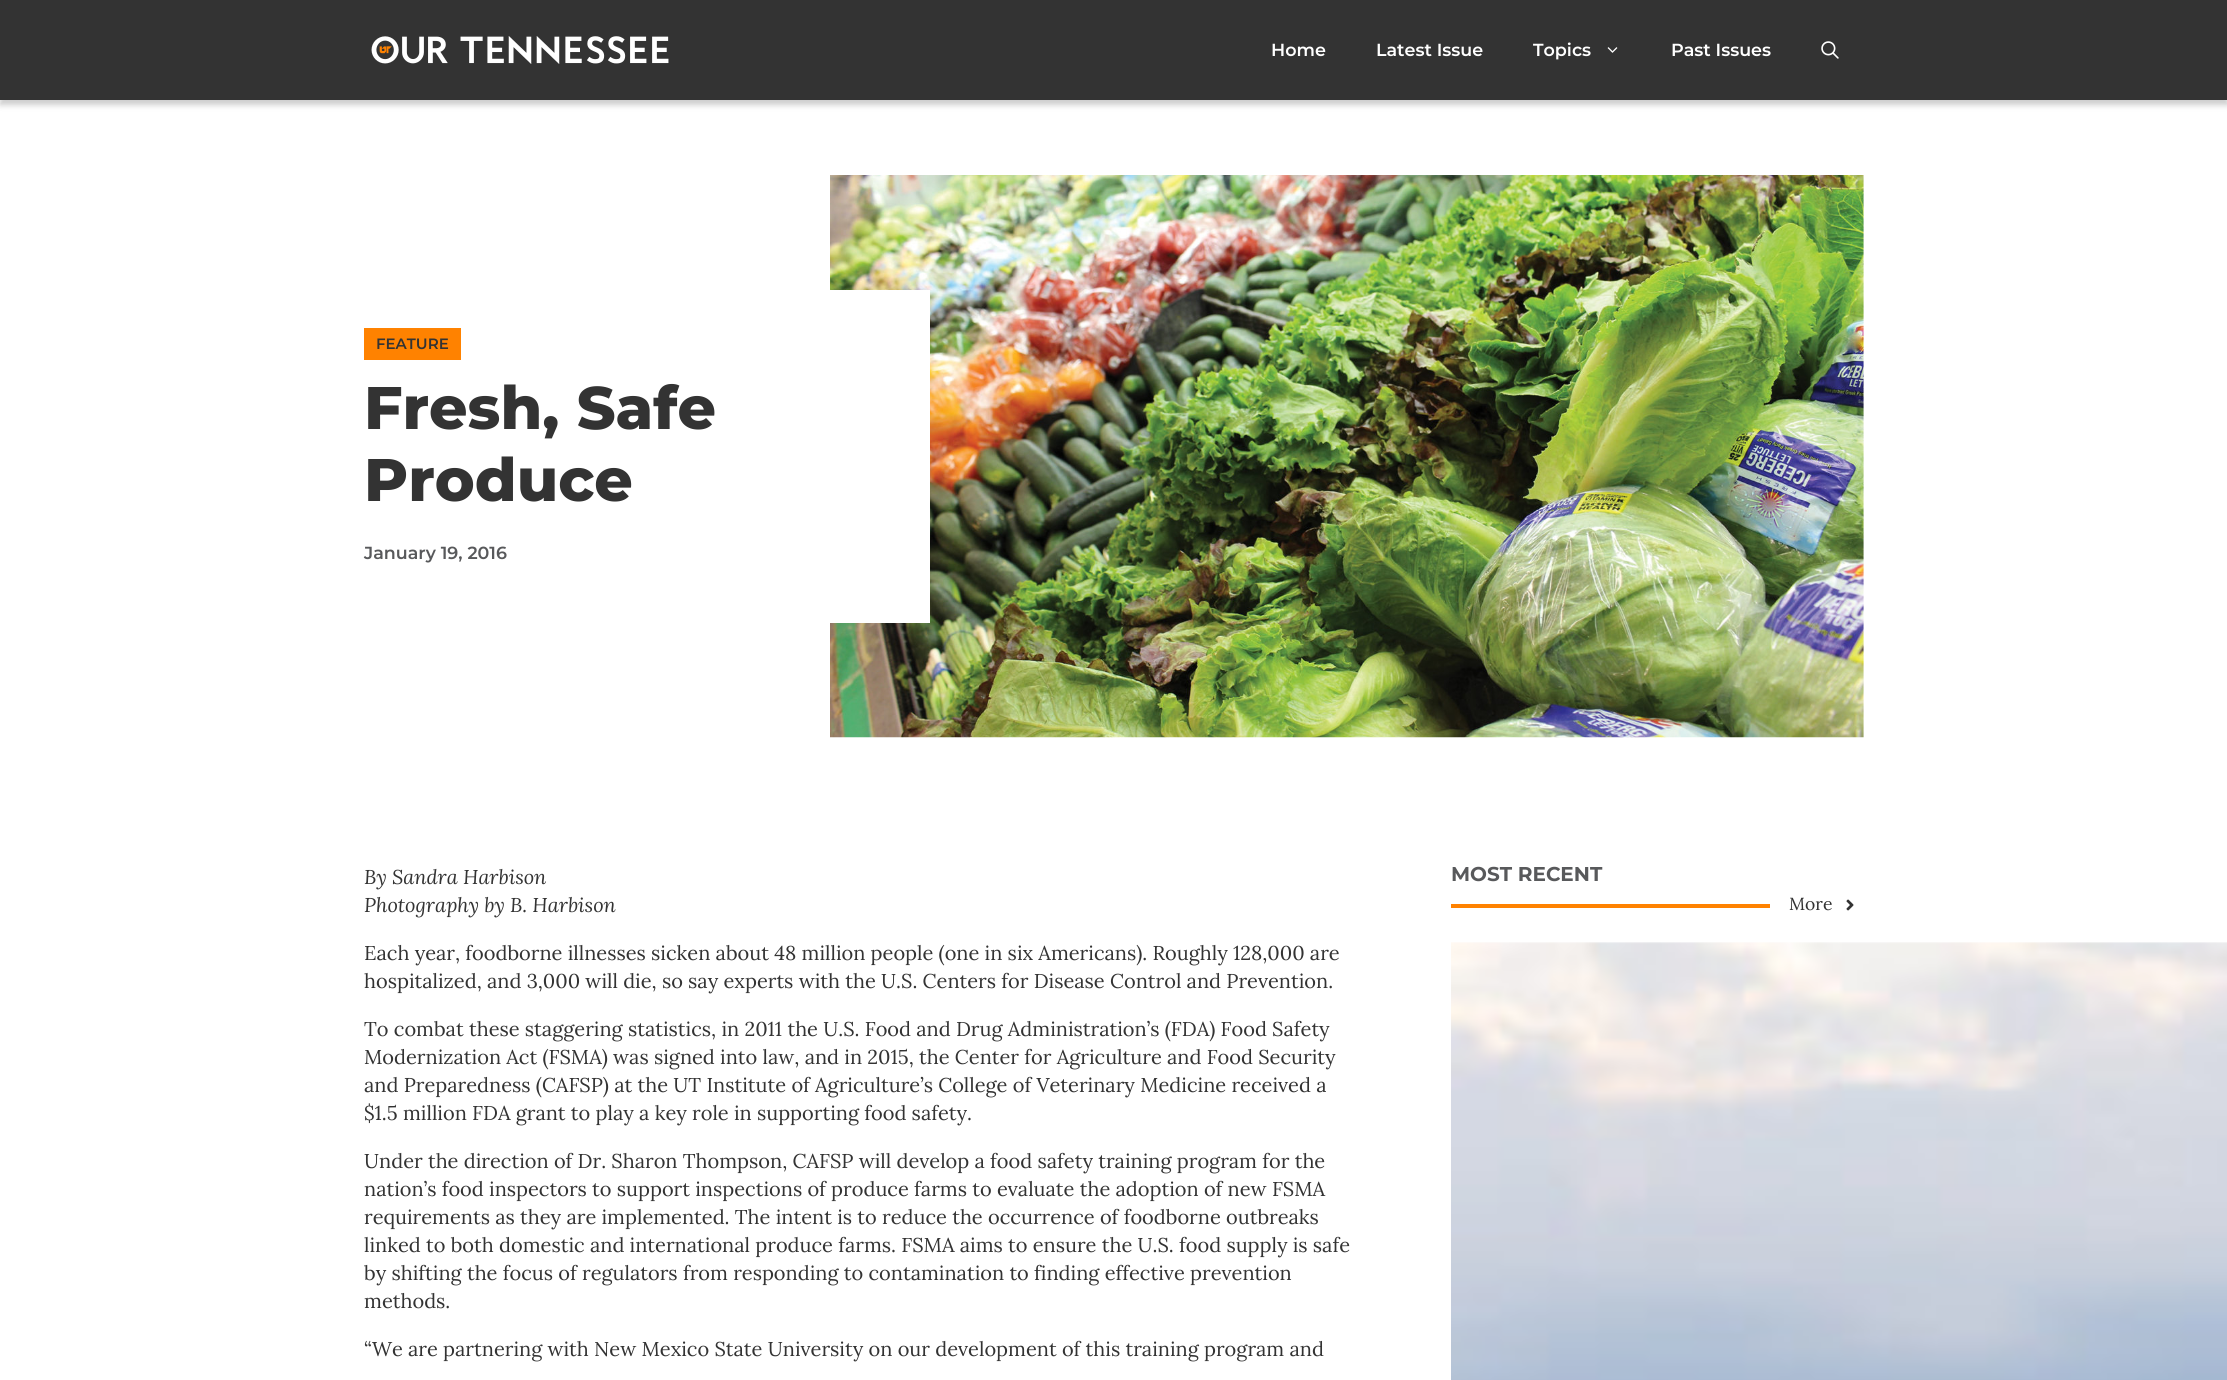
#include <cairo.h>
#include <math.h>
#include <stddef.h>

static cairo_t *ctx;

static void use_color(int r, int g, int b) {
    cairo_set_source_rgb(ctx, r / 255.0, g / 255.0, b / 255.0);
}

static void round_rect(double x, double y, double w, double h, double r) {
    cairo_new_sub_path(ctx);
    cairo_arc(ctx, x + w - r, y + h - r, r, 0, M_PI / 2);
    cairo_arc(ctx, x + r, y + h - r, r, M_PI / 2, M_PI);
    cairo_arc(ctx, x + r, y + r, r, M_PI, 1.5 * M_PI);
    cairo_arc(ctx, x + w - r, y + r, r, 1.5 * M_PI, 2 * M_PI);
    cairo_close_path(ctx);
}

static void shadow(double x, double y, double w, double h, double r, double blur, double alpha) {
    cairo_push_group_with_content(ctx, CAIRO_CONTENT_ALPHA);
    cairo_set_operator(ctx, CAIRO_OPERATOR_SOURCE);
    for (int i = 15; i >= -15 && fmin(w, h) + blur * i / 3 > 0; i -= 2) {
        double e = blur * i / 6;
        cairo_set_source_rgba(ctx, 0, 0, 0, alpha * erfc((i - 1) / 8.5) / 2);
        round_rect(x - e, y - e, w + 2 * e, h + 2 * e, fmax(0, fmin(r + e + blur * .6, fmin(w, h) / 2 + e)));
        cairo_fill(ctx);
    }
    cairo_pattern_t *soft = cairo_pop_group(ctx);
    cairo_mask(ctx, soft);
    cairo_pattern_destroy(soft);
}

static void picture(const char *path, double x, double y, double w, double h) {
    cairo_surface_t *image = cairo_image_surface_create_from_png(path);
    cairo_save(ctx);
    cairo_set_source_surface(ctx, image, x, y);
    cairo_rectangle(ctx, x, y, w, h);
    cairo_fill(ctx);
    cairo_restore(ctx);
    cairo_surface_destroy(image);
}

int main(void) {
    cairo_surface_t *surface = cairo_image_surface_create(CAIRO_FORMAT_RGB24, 2227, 1380);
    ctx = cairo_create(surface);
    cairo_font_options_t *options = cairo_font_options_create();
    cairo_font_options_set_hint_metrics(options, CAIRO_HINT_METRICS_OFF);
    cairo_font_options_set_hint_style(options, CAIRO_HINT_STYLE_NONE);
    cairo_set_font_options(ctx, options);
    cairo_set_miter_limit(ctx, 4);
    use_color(255, 255, 255);
    cairo_paint(ctx);
    use_color(0, 0, 0);
    shadow(0, 5, 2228, 100, 0, 3, 0.2);
    use_color(51, 51, 51);
    cairo_rectangle(ctx, 0, 0, 2227, 100);
    cairo_fill(ctx);
    picture("img1.png", 371, 36, 298, 28);
    cairo_select_font_face(ctx, "Montserrat SemiBold", CAIRO_FONT_SLANT_NORMAL, CAIRO_FONT_WEIGHT_NORMAL);
    cairo_set_font_size(ctx, 17.5);
    use_color(255, 255, 255);
    cairo_move_to(ctx, 1271, 56);
    cairo_show_text(ctx, "Home");
    cairo_move_to(ctx, 1376, 56);
    cairo_show_text(ctx, "Latest Issue");
    cairo_move_to(ctx, 1533, 56);
    cairo_show_text(ctx, "Topics");
    picture("img2.png", 1607, 47, 11, 6);
    cairo_move_to(ctx, 1671, 56);
    cairo_show_text(ctx, "Past Issues");
    picture("img3.png", 1821, 41, 18, 18);
    picture("img4.png", 830, 175, 1034, 563);
    cairo_rectangle(ctx, 830, 290, 100, 333);
    cairo_fill(ctx);
    use_color(255, 130, 0);
    cairo_rectangle(ctx, 364, 328, 97, 32);
    cairo_fill(ctx);
    cairo_set_font_size(ctx, 15);
    use_color(51, 51, 51);
    cairo_move_to(ctx, 376, 349);
    cairo_show_text(ctx, "FEATURE");
    cairo_select_font_face(ctx, "Montserrat ExtraBold", CAIRO_FONT_SLANT_NORMAL, CAIRO_FONT_WEIGHT_NORMAL);
    cairo_set_font_size(ctx, 60);
    cairo_move_to(ctx, 364, 429);
    cairo_show_text(ctx, "Fresh, Safe");
    cairo_move_to(ctx, 364, 501);
    cairo_show_text(ctx, "Produce");
    cairo_select_font_face(ctx, "Montserrat SemiBold", CAIRO_FONT_SLANT_NORMAL, CAIRO_FONT_WEIGHT_NORMAL);
    cairo_set_font_size(ctx, 17.5);
    use_color(88, 89, 91);
    cairo_move_to(ctx, 364, 559);
    cairo_show_text(ctx, "January 19, 2016");
    cairo_select_font_face(ctx, "Lora", CAIRO_FONT_SLANT_ITALIC, CAIRO_FONT_WEIGHT_NORMAL);
    cairo_set_font_size(ctx, 20);
    use_color(51, 51, 51);
    cairo_move_to(ctx, 364, 884);
    cairo_show_text(ctx, "By Sandra Harbison");
    cairo_move_to(ctx, 364, 912);
    cairo_show_text(ctx, "Photography by B. Harbison");
    cairo_select_font_face(ctx, "Lora", CAIRO_FONT_SLANT_NORMAL, CAIRO_FONT_WEIGHT_NORMAL);
    cairo_move_to(ctx, 364, 960);
    cairo_show_text(ctx, "Each year, foodborne illnesses sicken about 48 million people (one in six Americans). Roughly 128,000 are");
    cairo_move_to(ctx, 364, 988);
    cairo_show_text(ctx, "hospitalized, and 3,000 will die, so say experts with the U.S. Centers for Disease Control and Prevention.");
    cairo_move_to(ctx, 364, 1036);
    cairo_show_text(ctx, "To combat these staggering statistics, in 2011 the U.S. Food and Drug Administration’s (FDA) Food Safety");
    cairo_move_to(ctx, 364, 1064);
    cairo_show_text(ctx, "Modernization Act (FSMA) was signed into law, and in 2015, the Center for Agriculture and Food Security");
    cairo_move_to(ctx, 364, 1092);
    cairo_show_text(ctx, "and Preparedness (CAFSP) at the UT Institute of Agriculture’s College of Veterinary Medicine received a");
    cairo_move_to(ctx, 364, 1120);
    cairo_show_text(ctx, "$1.5 million FDA grant to play a key role in supporting food safety.");
    cairo_move_to(ctx, 364, 1168);
    cairo_show_text(ctx, "Under the direction of Dr. Sharon Thompson, CAFSP will develop a food safety training program for the");
    cairo_move_to(ctx, 364, 1196);
    cairo_show_text(ctx, "nation’s food inspectors to support inspections of produce farms to evaluate the adoption of new FSMA");
    cairo_move_to(ctx, 364, 1224);
    cairo_show_text(ctx, "requirements as they are implemented. The intent is to reduce the occurrence of foodborne outbreaks");
    cairo_move_to(ctx, 364, 1252);
    cairo_show_text(ctx, "linked to both domestic and international produce farms. FSMA aims to ensure the U.S. food supply is safe");
    cairo_move_to(ctx, 364, 1280);
    cairo_show_text(ctx, "by shifting the focus of regulators from responding to contamination to finding effective prevention");
    cairo_move_to(ctx, 364, 1308);
    cairo_show_text(ctx, "methods.");
    cairo_move_to(ctx, 364, 1356);
    cairo_show_text(ctx, "“We are partnering with New Mexico State University on our development of this training program and");
    cairo_select_font_face(ctx, "Montserrat", CAIRO_FONT_SLANT_NORMAL, CAIRO_FONT_WEIGHT_BOLD);
    use_color(88, 89, 91);
    cairo_move_to(ctx, 1451, 881);
    cairo_show_text(ctx, "MOST RECENT");
    use_color(255, 130, 0);
    cairo_rectangle(ctx, 1451, 904, 319, 4);
    cairo_fill(ctx);
    cairo_select_font_face(ctx, "Lora", CAIRO_FONT_SLANT_NORMAL, CAIRO_FONT_WEIGHT_NORMAL);
    cairo_set_font_size(ctx, 17.5);
    use_color(51, 51, 51);
    cairo_move_to(ctx, 1789, 910);
    cairo_show_text(ctx, "More");
    picture("img5.png", 1846, 899, 8, 12);
    picture("img6.png", 1451, 942, 776, 438);
    cairo_surface_write_to_png(surface, "result.png");
    cairo_font_options_destroy(options);
    cairo_destroy(ctx);
    cairo_surface_destroy(surface);
    return 0;
}
